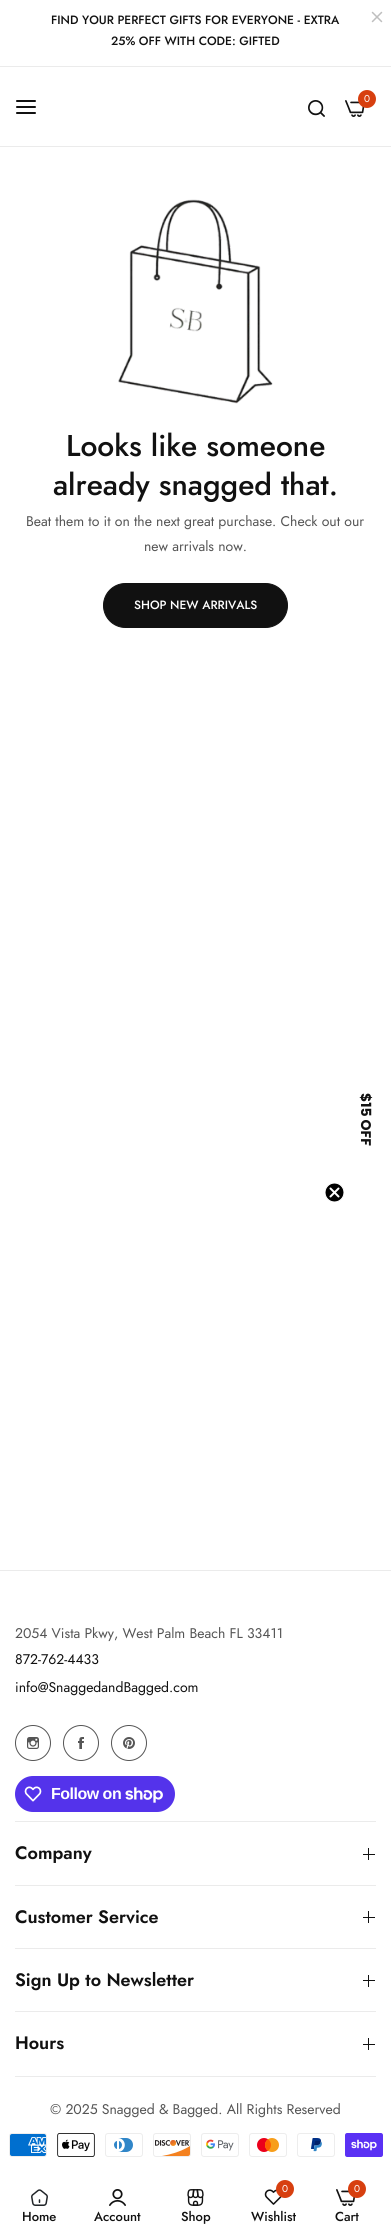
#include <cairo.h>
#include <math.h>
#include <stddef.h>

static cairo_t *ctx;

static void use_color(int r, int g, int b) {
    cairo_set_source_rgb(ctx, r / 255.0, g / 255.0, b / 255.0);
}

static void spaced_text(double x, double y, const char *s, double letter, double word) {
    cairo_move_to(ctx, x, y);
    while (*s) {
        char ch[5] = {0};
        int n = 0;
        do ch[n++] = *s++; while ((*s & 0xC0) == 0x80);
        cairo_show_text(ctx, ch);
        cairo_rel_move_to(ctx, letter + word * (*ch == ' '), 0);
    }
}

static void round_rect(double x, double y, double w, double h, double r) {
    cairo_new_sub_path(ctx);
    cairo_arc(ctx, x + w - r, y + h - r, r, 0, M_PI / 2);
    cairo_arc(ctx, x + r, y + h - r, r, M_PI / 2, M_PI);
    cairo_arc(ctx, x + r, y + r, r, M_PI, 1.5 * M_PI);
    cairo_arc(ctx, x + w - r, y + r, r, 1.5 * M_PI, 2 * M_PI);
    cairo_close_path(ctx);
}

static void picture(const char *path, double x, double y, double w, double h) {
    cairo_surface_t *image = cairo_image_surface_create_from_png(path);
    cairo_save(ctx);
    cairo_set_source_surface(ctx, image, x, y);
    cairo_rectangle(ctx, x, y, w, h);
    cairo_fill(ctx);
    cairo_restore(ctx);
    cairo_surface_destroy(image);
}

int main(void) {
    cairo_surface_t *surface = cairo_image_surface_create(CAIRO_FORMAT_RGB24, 391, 2239);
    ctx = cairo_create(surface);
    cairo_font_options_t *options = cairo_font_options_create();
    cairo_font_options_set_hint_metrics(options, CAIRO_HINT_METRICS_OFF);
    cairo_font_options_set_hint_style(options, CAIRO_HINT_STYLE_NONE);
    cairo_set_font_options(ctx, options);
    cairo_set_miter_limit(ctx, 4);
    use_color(255, 255, 255);
    cairo_paint(ctx);
    cairo_select_font_face(ctx, "Jost Medium", CAIRO_FONT_SLANT_NORMAL, CAIRO_FONT_WEIGHT_NORMAL);
    cairo_set_font_size(ctx, 12);
    use_color(17, 17, 17);
    cairo_move_to(ctx, 51, 24);
    cairo_show_text(ctx, "FIND YOUR PERFECT GIFTS FOR EVERYONE - EXTRA");
    cairo_move_to(ctx, 111, 45);
    cairo_show_text(ctx, "25% OFF WITH CODE: GIFTED");
    cairo_new_path(ctx);
    cairo_move_to(ctx, 372.5, 12.5);
    cairo_line_to(ctx, 381.5, 21.5);
    cairo_move_to(ctx, 372.5, 21.5);
    cairo_line_to(ctx, 381.5, 12.5);
    use_color(191, 191, 191);
    cairo_set_line_width(ctx, 1.5);
    cairo_set_line_cap(ctx, CAIRO_LINE_CAP_ROUND);
    cairo_set_line_join(ctx, CAIRO_LINE_JOIN_ROUND);
    cairo_stroke(ctx);
    use_color(235, 235, 235);
    cairo_rectangle(ctx, 0, 146, 391, 1);
    cairo_fill(ctx);
    cairo_rectangle(ctx, 0, 66, 391, 1);
    cairo_fill(ctx);
    picture("img1.png", 345, 100, 20, 17);
    use_color(215, 63, 15);
    cairo_arc(ctx, 367, 99, 9, 0, 2 * M_PI);
    cairo_fill(ctx);
    cairo_select_font_face(ctx, "Jost", CAIRO_FONT_SLANT_NORMAL, CAIRO_FONT_WEIGHT_NORMAL);
    cairo_set_font_size(ctx, 10);
    use_color(255, 255, 255);
    cairo_move_to(ctx, 364, 102);
    cairo_show_text(ctx, "0");
    picture("img2.png", 308, 100, 17, 17);
    picture("img3.png", 16, 100, 20, 14);
    picture("img4.png", 118, 199, 155, 205);
    cairo_select_font_face(ctx, "Jost Medium", CAIRO_FONT_SLANT_NORMAL, CAIRO_FONT_WEIGHT_NORMAL);
    cairo_set_font_size(ctx, 30);
    use_color(17, 17, 17);
    cairo_move_to(ctx, 66, 456);
    cairo_show_text(ctx, "Looks like someone");
    cairo_move_to(ctx, 53, 495);
    cairo_show_text(ctx, "already snagged that.");
    cairo_select_font_face(ctx, "Jost", CAIRO_FONT_SLANT_NORMAL, CAIRO_FONT_WEIGHT_NORMAL);
    cairo_set_font_size(ctx, 14);
    use_color(85, 85, 85);
    cairo_move_to(ctx, 26, 526);
    cairo_show_text(ctx, "Beat them to it on the next great purchase. Check out our");
    cairo_move_to(ctx, 144, 551);
    cairo_show_text(ctx, "new arrivals now.");
    use_color(17, 17, 17);
    round_rect(103.5, 583.5, 184, 44, 22);
    cairo_fill_preserve(ctx);
    cairo_set_line_width(ctx, 1);
    cairo_set_line_cap(ctx, CAIRO_LINE_CAP_BUTT);
    cairo_set_line_join(ctx, CAIRO_LINE_JOIN_MITER);
    cairo_stroke(ctx);
    cairo_select_font_face(ctx, "Jost Medium", CAIRO_FONT_SLANT_NORMAL, CAIRO_FONT_WEIGHT_NORMAL);
    cairo_set_font_size(ctx, 12);
    use_color(255, 255, 255);
    cairo_move_to(ctx, 134, 609);
    cairo_show_text(ctx, "SHOP NEW ARRIVALS");
    use_color(235, 235, 235);
    cairo_rectangle(ctx, 0, 1570, 391, 1);
    cairo_fill(ctx);
    cairo_select_font_face(ctx, "Jost", CAIRO_FONT_SLANT_NORMAL, CAIRO_FONT_WEIGHT_NORMAL);
    cairo_set_font_size(ctx, 14);
    use_color(85, 85, 85);
    cairo_move_to(ctx, 15, 1638);
    cairo_show_text(ctx, "2054 Vista Pkwy, West Palm Beach FL 33411");
    use_color(17, 17, 17);
    cairo_move_to(ctx, 15, 1664);
    cairo_show_text(ctx, "872-762-4433");
    cairo_move_to(ctx, 15, 1692);
    cairo_show_text(ctx, "info@SnaggedandBagged.com");
    picture("img5.png", 15, 1725, 36, 36);
    picture("img6.png", 63, 1725, 36, 36);
    picture("img7.png", 111, 1725, 36, 36);
    use_color(84, 51, 235);
    round_rect(15, 1776, 160, 36, 18);
    cairo_fill(ctx);
    picture("img8.png", 24, 1786, 18, 16);
    cairo_select_font_face(ctx, "Liberation Sans", CAIRO_FONT_SLANT_NORMAL, CAIRO_FONT_WEIGHT_BOLD);
    cairo_set_font_size(ctx, 16);
    use_color(255, 255, 255);
    spaced_text(51, 1799, "Follow on", -0.5, 0);
    picture("img9.png", 125, 1787, 38, 16);
    use_color(235, 235, 235);
    cairo_rectangle(ctx, 15, 1821, 361, 1);
    cairo_fill(ctx);
    cairo_select_font_face(ctx, "Jost SemiBold", CAIRO_FONT_SLANT_NORMAL, CAIRO_FONT_WEIGHT_NORMAL);
    cairo_set_font_size(ctx, 18);
    use_color(17, 17, 17);
    cairo_move_to(ctx, 15, 1859);
    cairo_show_text(ctx, "Company");
    cairo_rectangle(ctx, 368, 1848, 1, 12);
    cairo_fill(ctx);
    cairo_rectangle(ctx, 363, 1854, 12, 1);
    cairo_fill(ctx);
    use_color(235, 235, 235);
    cairo_rectangle(ctx, 15, 1885, 361, 1);
    cairo_fill(ctx);
    use_color(17, 17, 17);
    cairo_move_to(ctx, 15, 1923);
    cairo_show_text(ctx, "Customer Service");
    cairo_rectangle(ctx, 368, 1911, 1, 12);
    cairo_fill(ctx);
    cairo_rectangle(ctx, 363, 1917, 12, 1);
    cairo_fill(ctx);
    use_color(235, 235, 235);
    cairo_rectangle(ctx, 15, 1948, 361, 1);
    cairo_fill(ctx);
    use_color(17, 17, 17);
    cairo_move_to(ctx, 15, 1986);
    cairo_show_text(ctx, "Sign Up to Newsletter");
    cairo_rectangle(ctx, 368, 1975, 1, 12);
    cairo_fill(ctx);
    cairo_rectangle(ctx, 363, 1980, 12, 1);
    cairo_fill(ctx);
    use_color(235, 235, 235);
    cairo_rectangle(ctx, 15, 2011, 361, 1);
    cairo_fill(ctx);
    use_color(17, 17, 17);
    cairo_move_to(ctx, 15, 2049);
    cairo_show_text(ctx, "Hours");
    cairo_rectangle(ctx, 368, 2038, 1, 12);
    cairo_fill(ctx);
    cairo_rectangle(ctx, 363, 2044, 12, 1);
    cairo_fill(ctx);
    use_color(235, 235, 235);
    cairo_rectangle(ctx, 15, 2076, 361, 1);
    cairo_fill(ctx);
    cairo_select_font_face(ctx, "Jost", CAIRO_FONT_SLANT_NORMAL, CAIRO_FONT_WEIGHT_NORMAL);
    cairo_set_font_size(ctx, 14);
    use_color(85, 85, 85);
    cairo_move_to(ctx, 50, 2114);
    cairo_show_text(ctx, "© 2025 Snagged & Bagged. All Rights Reserved");
    picture("img10.png", 9, 2133, 38, 24);
    picture("img11.png", 57, 2133, 38, 24);
    picture("img12.png", 105, 2133, 38, 24);
    picture("img13.png", 153, 2133, 38, 24);
    picture("img14.png", 201, 2133, 38, 24);
    picture("img15.png", 249, 2133, 38, 24);
    picture("img16.png", 297, 2133, 38, 24);
    picture("img17.png", 345, 2133, 38, 24);
    picture("img18.png", 31, 2189, 17, 17);
    cairo_select_font_face(ctx, "Jost Medium", CAIRO_FONT_SLANT_NORMAL, CAIRO_FONT_WEIGHT_NORMAL);
    cairo_set_font_size(ctx, 13);
    use_color(17, 17, 17);
    cairo_move_to(ctx, 22, 2221);
    cairo_show_text(ctx, "Home");
    picture("img19.png", 109, 2189, 17, 17);
    cairo_move_to(ctx, 94, 2221);
    cairo_show_text(ctx, "Account");
    picture("img20.png", 187, 2189, 17, 17);
    cairo_move_to(ctx, 181, 2221);
    cairo_show_text(ctx, "Shop");
    picture("img21.png", 264, 2189, 18, 16);
    use_color(215, 63, 15);
    cairo_arc(ctx, 285, 2189, 9, 0, 2 * M_PI);
    cairo_fill(ctx);
    cairo_select_font_face(ctx, "Jost", CAIRO_FONT_SLANT_NORMAL, CAIRO_FONT_WEIGHT_NORMAL);
    cairo_set_font_size(ctx, 10);
    use_color(255, 255, 255);
    cairo_move_to(ctx, 282, 2192);
    cairo_show_text(ctx, "0");
    cairo_select_font_face(ctx, "Jost Medium", CAIRO_FONT_SLANT_NORMAL, CAIRO_FONT_WEIGHT_NORMAL);
    cairo_set_font_size(ctx, 13);
    use_color(17, 17, 17);
    cairo_move_to(ctx, 251, 2221);
    cairo_show_text(ctx, "Wishlist");
    picture("img1.png", 336, 2189, 20, 17);
    use_color(215, 63, 15);
    cairo_arc(ctx, 357, 2189, 9, 0, 2 * M_PI);
    cairo_fill(ctx);
    cairo_select_font_face(ctx, "Jost", CAIRO_FONT_SLANT_NORMAL, CAIRO_FONT_WEIGHT_NORMAL);
    cairo_set_font_size(ctx, 10);
    use_color(255, 255, 255);
    cairo_move_to(ctx, 354, 2192);
    cairo_show_text(ctx, "0");
    cairo_select_font_face(ctx, "Jost Medium", CAIRO_FONT_SLANT_NORMAL, CAIRO_FONT_WEIGHT_NORMAL);
    cairo_set_font_size(ctx, 13);
    use_color(17, 17, 17);
    cairo_move_to(ctx, 335, 2221);
    cairo_show_text(ctx, "Cart");
    cairo_select_font_face(ctx, "Poppins", CAIRO_FONT_SLANT_NORMAL, CAIRO_FONT_WEIGHT_BOLD);
    cairo_set_font_size(ctx, 14);
    cairo_save(ctx);
    cairo_translate(ctx, 361, 1093);
    cairo_rotate(ctx, 90 * M_PI / 180);
    cairo_move_to(ctx, 0, 0);
    cairo_show_text(ctx, "$15 OFF");
    cairo_restore(ctx);
    picture("img22.png", 325, 1183, 19, 19);
    cairo_surface_write_to_png(surface, "result.png");
    cairo_font_options_destroy(options);
    cairo_destroy(ctx);
    cairo_surface_destroy(surface);
    return 0;
}
